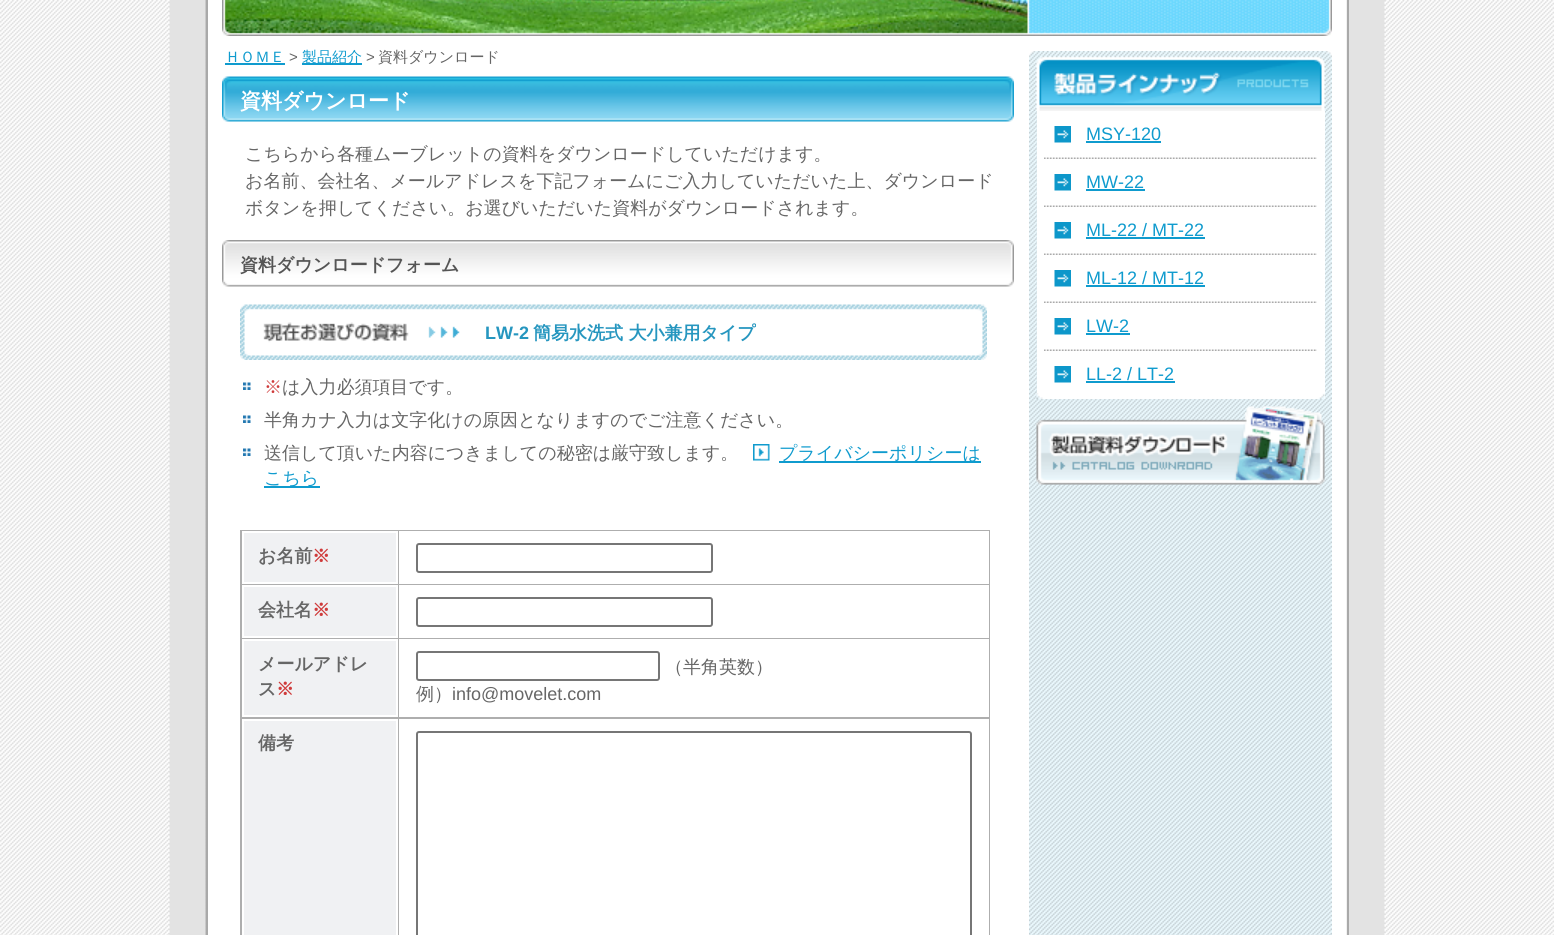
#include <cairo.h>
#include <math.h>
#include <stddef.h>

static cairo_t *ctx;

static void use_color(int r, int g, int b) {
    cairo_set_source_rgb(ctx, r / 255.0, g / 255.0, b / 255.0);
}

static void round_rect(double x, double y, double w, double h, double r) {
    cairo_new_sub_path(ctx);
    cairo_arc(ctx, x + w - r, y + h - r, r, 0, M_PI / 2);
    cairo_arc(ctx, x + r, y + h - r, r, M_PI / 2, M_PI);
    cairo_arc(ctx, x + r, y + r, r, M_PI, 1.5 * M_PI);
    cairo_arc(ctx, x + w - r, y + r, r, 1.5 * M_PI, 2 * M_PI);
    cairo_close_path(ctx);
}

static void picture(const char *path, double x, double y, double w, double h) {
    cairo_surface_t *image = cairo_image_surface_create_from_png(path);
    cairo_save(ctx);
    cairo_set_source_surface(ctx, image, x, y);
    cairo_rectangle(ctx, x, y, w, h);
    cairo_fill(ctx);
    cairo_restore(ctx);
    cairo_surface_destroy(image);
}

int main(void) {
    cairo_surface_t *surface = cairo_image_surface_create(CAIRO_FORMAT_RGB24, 1554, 935);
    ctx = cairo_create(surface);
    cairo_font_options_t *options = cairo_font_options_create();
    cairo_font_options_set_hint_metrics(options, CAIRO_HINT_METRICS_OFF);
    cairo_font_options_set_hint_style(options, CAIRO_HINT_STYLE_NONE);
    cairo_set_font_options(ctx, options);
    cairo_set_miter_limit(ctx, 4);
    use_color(255, 255, 255);
    cairo_paint(ctx);
    picture("img1.png", 0, 0, 1554, 935);
    picture("img2.png", 1029, 111, 303, 824);
    use_color(169, 169, 169);
    cairo_rectangle(ctx, 1347, 0, 2, 935);
    cairo_fill(ctx);
    cairo_rectangle(ctx, 206, 0, 2, 935);
    cairo_fill(ctx);
    picture("img3.png", 222, 0, 1110, 36);
    cairo_select_font_face(ctx, "WenQuanYi Zen Hei Medium", CAIRO_FONT_SLANT_NORMAL, CAIRO_FONT_WEIGHT_NORMAL);
    cairo_set_font_size(ctx, 15);
    use_color(15, 155, 206);
    cairo_move_to(ctx, 225, 62);
    cairo_show_text(ctx, "ＨＯＭＥ");
    cairo_rectangle(ctx, 225, 63, 60, 2);
    cairo_fill(ctx);
    cairo_select_font_face(ctx, "Liberation Sans", CAIRO_FONT_SLANT_NORMAL, CAIRO_FONT_WEIGHT_NORMAL);
    use_color(102, 102, 102);
    cairo_move_to(ctx, 289, 62);
    cairo_show_text(ctx, ">");
    use_color(15, 155, 206);
    cairo_rectangle(ctx, 302, 63, 60, 2);
    cairo_fill(ctx);
    cairo_select_font_face(ctx, "WenQuanYi Zen Hei Medium", CAIRO_FONT_SLANT_NORMAL, CAIRO_FONT_WEIGHT_NORMAL);
    cairo_move_to(ctx, 302, 62);
    cairo_show_text(ctx, "製品紹介");
    cairo_select_font_face(ctx, "Liberation Sans", CAIRO_FONT_SLANT_NORMAL, CAIRO_FONT_WEIGHT_NORMAL);
    use_color(102, 102, 102);
    cairo_move_to(ctx, 366, 62);
    cairo_show_text(ctx, ">");
    cairo_select_font_face(ctx, "WenQuanYi Zen Hei Medium", CAIRO_FONT_SLANT_NORMAL, CAIRO_FONT_WEIGHT_NORMAL);
    cairo_move_to(ctx, 378, 62);
    cairo_show_text(ctx, "資料ダウンロード");
    picture("img4.png", 222, 76, 792, 46);
    cairo_select_font_face(ctx, "WenQuanYi Zen Hei", CAIRO_FONT_SLANT_NORMAL, CAIRO_FONT_WEIGHT_BOLD);
    cairo_set_font_size(ctx, 21);
    use_color(255, 255, 255);
    cairo_move_to(ctx, 240, 108);
    cairo_show_text(ctx, "資料ダウンロード");
    cairo_select_font_face(ctx, "WenQuanYi Zen Hei Medium", CAIRO_FONT_SLANT_NORMAL, CAIRO_FONT_WEIGHT_NORMAL);
    cairo_set_font_size(ctx, 18);
    use_color(102, 102, 102);
    cairo_move_to(ctx, 245, 160);
    cairo_show_text(ctx, "こちらから各種ムーブレットの資料をダウンロードしていただけます。");
    cairo_move_to(ctx, 245, 187);
    cairo_show_text(ctx, "お名前、会社名、メールアドレスを下記フォームにご入力していただいた上、ダウンロード");
    cairo_move_to(ctx, 245, 214);
    cairo_show_text(ctx, "ボタンを押してください。お選びいただいた資料がダウンロードされます。");
    picture("img5.png", 222, 240, 792, 47);
    cairo_select_font_face(ctx, "WenQuanYi Zen Hei", CAIRO_FONT_SLANT_NORMAL, CAIRO_FONT_WEIGHT_BOLD);
    use_color(85, 85, 85);
    cairo_move_to(ctx, 240, 271);
    cairo_show_text(ctx, "資料ダウンロードフォーム");
    picture("img6.png", 240, 304, 747, 56);
    cairo_select_font_face(ctx, "Liberation Sans", CAIRO_FONT_SLANT_NORMAL, CAIRO_FONT_WEIGHT_BOLD);
    use_color(38, 150, 191);
    cairo_move_to(ctx, 485, 339);
    cairo_show_text(ctx, "LW-2");
    cairo_select_font_face(ctx, "WenQuanYi Zen Hei", CAIRO_FONT_SLANT_NORMAL, CAIRO_FONT_WEIGHT_BOLD);
    cairo_move_to(ctx, 533, 339);
    cairo_show_text(ctx, "簡易水洗式 大小兼用タイプ");
    picture("img7.png", 243, 382, 8, 8);
    cairo_select_font_face(ctx, "WenQuanYi Zen Hei Medium", CAIRO_FONT_SLANT_NORMAL, CAIRO_FONT_WEIGHT_NORMAL);
    use_color(207, 58, 58);
    cairo_move_to(ctx, 264, 393);
    cairo_show_text(ctx, "※");
    use_color(102, 102, 102);
    cairo_move_to(ctx, 282, 393);
    cairo_show_text(ctx, "は入力必須項目です。");
    picture("img7.png", 243, 415, 8, 8);
    cairo_move_to(ctx, 264, 426);
    cairo_show_text(ctx, "半角カナ入力は文字化けの原因となりますのでご注意ください。");
    picture("img7.png", 243, 448, 8, 8);
    cairo_move_to(ctx, 264, 459);
    cairo_show_text(ctx, "送信して頂いた内容につきましての秘密は厳守致します。");
    picture("img8.png", 753, 444, 17, 17);
    use_color(15, 155, 206);
    cairo_rectangle(ctx, 779, 461, 202, 2);
    cairo_fill(ctx);
    cairo_move_to(ctx, 779, 459);
    cairo_show_text(ctx, "プライバシーポリシーは");
    cairo_rectangle(ctx, 264, 486, 56, 2);
    cairo_fill(ctx);
    cairo_move_to(ctx, 264, 484);
    cairo_show_text(ctx, "こちら");
    use_color(174, 174, 174);
    cairo_rectangle(ctx, 240, 530, 750, 405);
    cairo_fill(ctx);
    use_color(240, 241, 243);
    cairo_rectangle(ctx, 243, 532, 154, 51);
    cairo_fill_preserve(ctx);
    use_color(255, 255, 255);
    cairo_stroke(ctx);
    cairo_select_font_face(ctx, "WenQuanYi Zen Hei", CAIRO_FONT_SLANT_NORMAL, CAIRO_FONT_WEIGHT_BOLD);
    use_color(102, 102, 102);
    cairo_move_to(ctx, 258, 562);
    cairo_show_text(ctx, "お名前");
    use_color(207, 58, 58);
    cairo_move_to(ctx, 312, 562);
    cairo_show_text(ctx, "※");
    use_color(255, 255, 255);
    cairo_rectangle(ctx, 399, 531, 590, 53);
    cairo_fill(ctx);
    round_rect(417, 544, 295, 28, 2);
    use_color(118, 118, 118);
    cairo_stroke(ctx);
    use_color(240, 241, 243);
    cairo_rectangle(ctx, 243, 586, 154, 51);
    cairo_fill_preserve(ctx);
    use_color(255, 255, 255);
    cairo_stroke(ctx);
    use_color(102, 102, 102);
    cairo_move_to(ctx, 258, 616);
    cairo_show_text(ctx, "会社名");
    use_color(207, 58, 58);
    cairo_move_to(ctx, 312, 616);
    cairo_show_text(ctx, "※");
    use_color(255, 255, 255);
    cairo_rectangle(ctx, 399, 585, 590, 53);
    cairo_fill(ctx);
    round_rect(417, 598, 295, 28, 2);
    use_color(118, 118, 118);
    cairo_stroke(ctx);
    use_color(240, 241, 243);
    cairo_rectangle(ctx, 243, 640, 154, 76);
    cairo_fill_preserve(ctx);
    use_color(255, 255, 255);
    cairo_stroke(ctx);
    use_color(102, 102, 102);
    cairo_move_to(ctx, 258, 670);
    cairo_show_text(ctx, "メールアドレ");
    cairo_move_to(ctx, 258, 695);
    cairo_show_text(ctx, "ス");
    use_color(207, 58, 58);
    cairo_move_to(ctx, 276, 695);
    cairo_show_text(ctx, "※");
    use_color(255, 255, 255);
    cairo_rectangle(ctx, 399, 639, 590, 78);
    cairo_fill(ctx);
    round_rect(417, 652, 242, 28, 2);
    use_color(118, 118, 118);
    cairo_stroke(ctx);
    cairo_select_font_face(ctx, "WenQuanYi Zen Hei Medium", CAIRO_FONT_SLANT_NORMAL, CAIRO_FONT_WEIGHT_NORMAL);
    use_color(102, 102, 102);
    cairo_move_to(ctx, 665, 673);
    cairo_show_text(ctx, "（半角英数）");
    cairo_move_to(ctx, 416, 700);
    cairo_show_text(ctx, "例）");
    cairo_select_font_face(ctx, "Liberation Sans", CAIRO_FONT_SLANT_NORMAL, CAIRO_FONT_WEIGHT_NORMAL);
    cairo_move_to(ctx, 452, 700);
    cairo_show_text(ctx, "info@movelet.com");
    use_color(240, 241, 243);
    cairo_rectangle(ctx, 243, 720, 154, 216);
    cairo_fill_preserve(ctx);
    use_color(255, 255, 255);
    cairo_stroke(ctx);
    cairo_select_font_face(ctx, "WenQuanYi Zen Hei", CAIRO_FONT_SLANT_NORMAL, CAIRO_FONT_WEIGHT_BOLD);
    use_color(102, 102, 102);
    cairo_move_to(ctx, 258, 749);
    cairo_show_text(ctx, "備考");
    use_color(255, 255, 255);
    cairo_rectangle(ctx, 399, 719, 590, 216);
    cairo_fill(ctx);
    round_rect(417, 732, 554, 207, 2);
    use_color(118, 118, 118);
    cairo_stroke(ctx);
    picture("img9.png", 1029, 51, 303, 60);
    use_color(255, 255, 255);
    cairo_rectangle(ctx, 1037, 111, 288, 288);
    cairo_fill(ctx);
    picture("img10.png", 1036, 393, 289, 6);
    picture("img11.png", 1044, 157, 273, 2);
    picture("img12.png", 1054, 126, 17, 17);
    cairo_select_font_face(ctx, "Liberation Sans", CAIRO_FONT_SLANT_NORMAL, CAIRO_FONT_WEIGHT_NORMAL);
    use_color(15, 155, 206);
    cairo_move_to(ctx, 1086, 140);
    cairo_show_text(ctx, "MSY-120");
    cairo_rectangle(ctx, 1086, 141, 75, 2);
    cairo_fill(ctx);
    picture("img11.png", 1044, 205, 273, 2);
    picture("img12.png", 1054, 174, 17, 17);
    cairo_move_to(ctx, 1086, 188);
    cairo_show_text(ctx, "MW-22");
    cairo_rectangle(ctx, 1086, 189, 59, 2);
    cairo_fill(ctx);
    picture("img13.png", 1044, 253, 273, 2);
    picture("img12.png", 1054, 222, 17, 17);
    cairo_move_to(ctx, 1086, 236);
    cairo_show_text(ctx, "ML-22 / MT-22");
    cairo_rectangle(ctx, 1086, 237, 119, 2);
    cairo_fill(ctx);
    picture("img11.png", 1044, 301, 273, 2);
    picture("img12.png", 1054, 270, 17, 17);
    cairo_move_to(ctx, 1086, 284);
    cairo_show_text(ctx, "ML-12 / MT-12");
    cairo_rectangle(ctx, 1086, 285, 119, 2);
    cairo_fill(ctx);
    picture("img14.png", 1044, 349, 273, 2);
    picture("img12.png", 1054, 318, 17, 17);
    cairo_move_to(ctx, 1086, 332);
    cairo_show_text(ctx, "LW-2");
    cairo_rectangle(ctx, 1086, 333, 44, 2);
    cairo_fill(ctx);
    picture("img12.png", 1054, 366, 17, 17);
    cairo_move_to(ctx, 1086, 380);
    cairo_show_text(ctx, "LL-2 / LT-2");
    cairo_rectangle(ctx, 1086, 381, 89, 2);
    cairo_fill(ctx);
    picture("img15.png", 1036, 406, 289, 79);
    cairo_surface_write_to_png(surface, "result.png");
    cairo_font_options_destroy(options);
    cairo_destroy(ctx);
    cairo_surface_destroy(surface);
    return 0;
}
